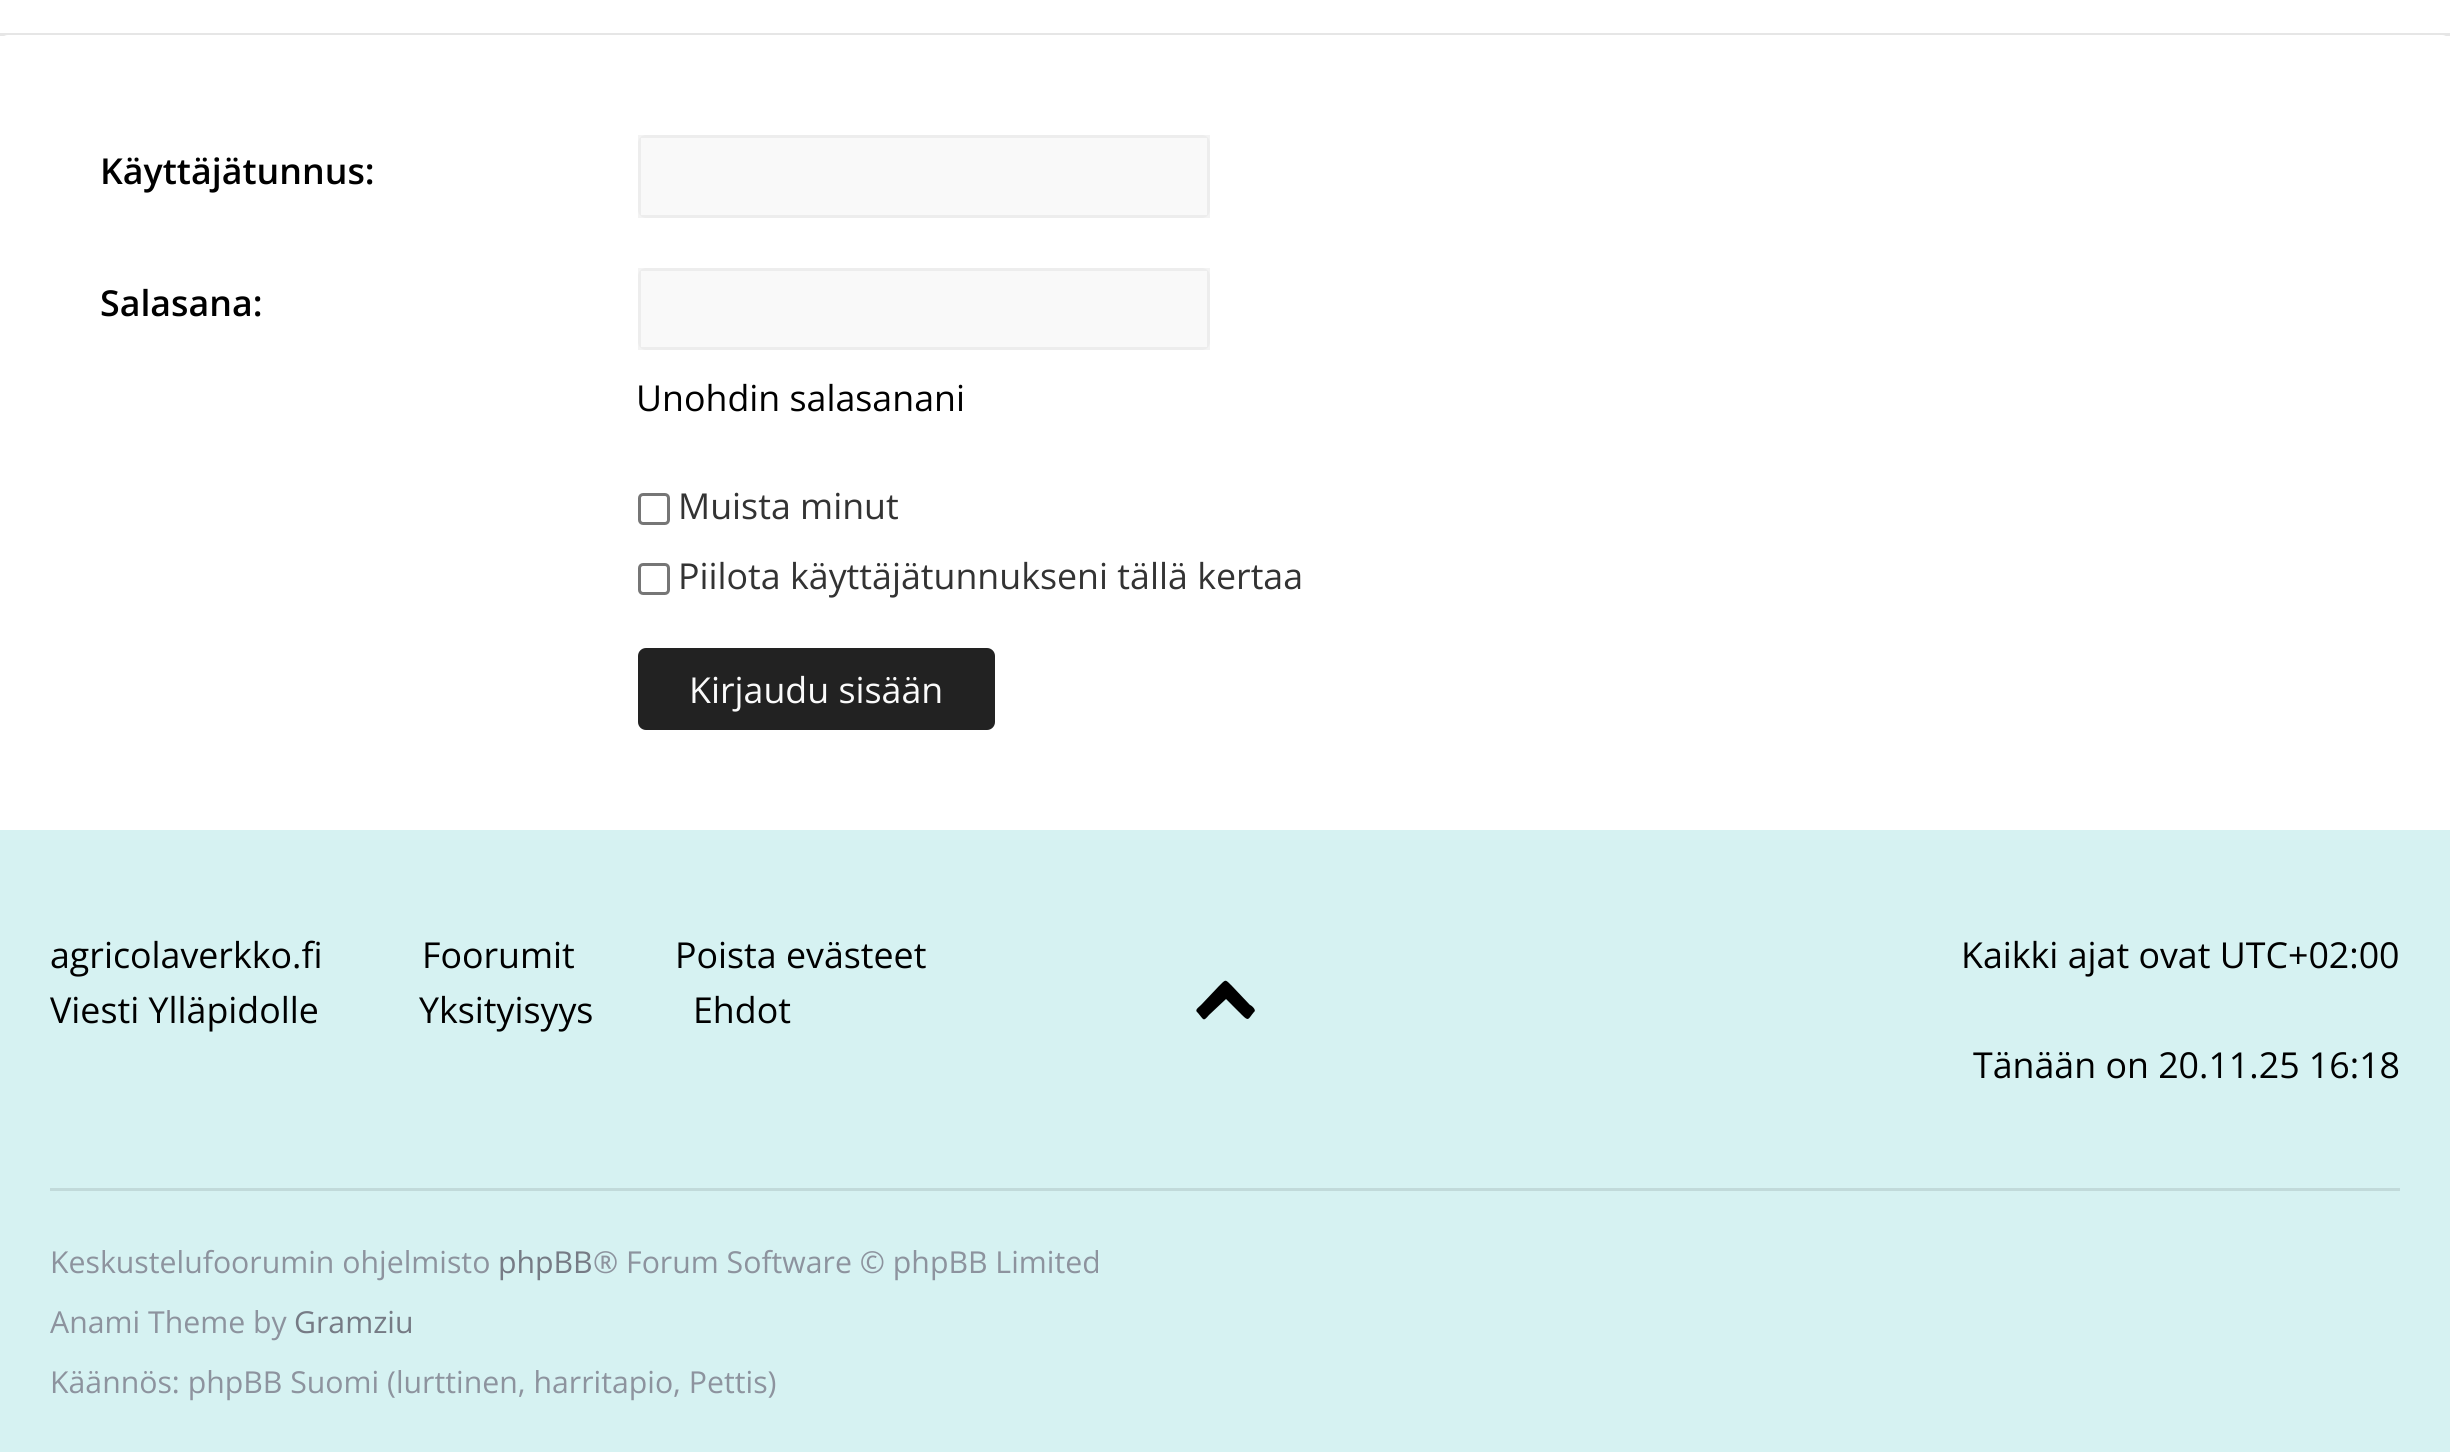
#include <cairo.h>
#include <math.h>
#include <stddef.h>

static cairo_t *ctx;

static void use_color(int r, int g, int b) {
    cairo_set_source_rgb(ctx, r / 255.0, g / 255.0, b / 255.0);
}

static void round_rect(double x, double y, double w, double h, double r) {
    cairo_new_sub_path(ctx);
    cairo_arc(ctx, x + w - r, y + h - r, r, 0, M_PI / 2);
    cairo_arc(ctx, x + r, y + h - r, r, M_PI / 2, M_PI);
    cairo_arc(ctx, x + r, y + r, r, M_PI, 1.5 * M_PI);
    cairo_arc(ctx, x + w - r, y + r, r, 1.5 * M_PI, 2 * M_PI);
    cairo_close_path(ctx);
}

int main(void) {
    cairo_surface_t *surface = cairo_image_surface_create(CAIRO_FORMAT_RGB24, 2450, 1452);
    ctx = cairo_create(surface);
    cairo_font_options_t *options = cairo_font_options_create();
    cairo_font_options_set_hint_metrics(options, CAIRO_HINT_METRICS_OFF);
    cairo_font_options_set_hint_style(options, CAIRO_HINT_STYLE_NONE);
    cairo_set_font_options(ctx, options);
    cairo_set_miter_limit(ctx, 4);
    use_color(255, 255, 255);
    cairo_paint(ctx);
    use_color(230, 230, 230);
    cairo_rectangle(ctx, 0, 33, 2450, 3);
    cairo_fill(ctx);
    use_color(255, 255, 255);
    round_rect(0, 35, 2450, 795, 8);
    cairo_fill(ctx);
    cairo_select_font_face(ctx, "Open Sans SemiBold", CAIRO_FONT_SLANT_NORMAL, CAIRO_FONT_WEIGHT_NORMAL);
    cairo_set_font_size(ctx, 35.75);
    use_color(0, 0, 0);
    cairo_move_to(ctx, 100, 184);
    cairo_show_text(ctx, "Käyttäjätunnus:");
    use_color(249, 249, 249);
    round_rect(638, 135, 572, 83, 8);
    cairo_fill(ctx);
    cairo_rectangle(ctx, 639.5, 136.5, 569, 80);
    cairo_set_source_rgba(ctx, 0, 0, 0, 0.05);
    cairo_set_line_width(ctx, 3);
    cairo_stroke(ctx);
    use_color(0, 0, 0);
    cairo_move_to(ctx, 100, 316);
    cairo_show_text(ctx, "Salasana:");
    use_color(249, 249, 249);
    round_rect(638, 268, 572, 82, 8);
    cairo_fill(ctx);
    cairo_rectangle(ctx, 639.5, 269.5, 569, 79);
    cairo_set_source_rgba(ctx, 0, 0, 0, 0.05);
    cairo_stroke(ctx);
    cairo_select_font_face(ctx, "Open Sans", CAIRO_FONT_SLANT_NORMAL, CAIRO_FONT_WEIGHT_NORMAL);
    use_color(0, 0, 0);
    cairo_move_to(ctx, 636, 411);
    cairo_show_text(ctx, "Unohdin salasanani");
    round_rect(639.5, 494.5, 29, 29, 3.5);
    use_color(118, 118, 118);
    cairo_stroke(ctx);
    use_color(51, 51, 51);
    cairo_move_to(ctx, 678, 519);
    cairo_show_text(ctx, "Muista minut");
    round_rect(639.5, 564.5, 29, 29, 3.5);
    use_color(118, 118, 118);
    cairo_stroke(ctx);
    use_color(51, 51, 51);
    cairo_move_to(ctx, 678, 589);
    cairo_show_text(ctx, "Piilota käyttäjätunnukseni tällä kertaa");
    use_color(34, 34, 34);
    round_rect(639.5, 649.5, 354, 79, 6.5);
    cairo_fill_preserve(ctx);
    cairo_stroke(ctx);
    use_color(250, 250, 250);
    cairo_move_to(ctx, 689, 703);
    cairo_show_text(ctx, "Kirjaudu sisään");
    use_color(214, 242, 242);
    cairo_rectangle(ctx, 0, 830, 2450, 622);
    cairo_fill(ctx);
    use_color(0, 0, 0);
    cairo_move_to(ctx, 50, 968);
    cairo_show_text(ctx, "agricolaverkko.fi");
    cairo_move_to(ctx, 422, 968);
    cairo_show_text(ctx, "Foorumit");
    cairo_move_to(ctx, 675, 968);
    cairo_show_text(ctx, "Poista evästeet");
    cairo_move_to(ctx, 50, 1023);
    cairo_show_text(ctx, "Viesti Ylläpidolle");
    cairo_move_to(ctx, 419, 1023);
    cairo_show_text(ctx, "Yksityisyys");
    cairo_move_to(ctx, 693, 1023);
    cairo_show_text(ctx, "Ehdot");
    cairo_new_path(ctx);
    cairo_move_to(ctx, 1254, 1012);
    cairo_curve_to(ctx, 1248, 1019, 1249, 1022, 1242, 1015);
    cairo_line_to(ctx, 1226, 999);
    cairo_line_to(ctx, 1209, 1015);
    cairo_curve_to(ctx, 1203, 1022, 1204, 1020, 1198, 1013);
    cairo_curve_to(ctx, 1194, 1010, 1198, 1008, 1201, 1005);
    cairo_line_to(ctx, 1219, 986);
    cairo_curve_to(ctx, 1226, 979, 1225, 979, 1232, 986);
    cairo_line_to(ctx, 1250, 1005);
    cairo_curve_to(ctx, 1251, 1005, 1257, 1010, 1254, 1012);
    cairo_close_path(ctx);
    cairo_fill(ctx);
    cairo_move_to(ctx, 1961, 968);
    cairo_show_text(ctx, "Kaikki ajat ovat UTC+02:00");
    cairo_move_to(ctx, 1973, 1078);
    cairo_show_text(ctx, "Tänään on 20.11.25 16:18");
    use_color(193, 218, 218);
    cairo_rectangle(ctx, 50, 1188, 2350, 3);
    cairo_fill(ctx);
    cairo_set_font_size(ctx, 30.25);
    use_color(141, 147, 158);
    cairo_move_to(ctx, 50, 1273);
    cairo_show_text(ctx, "Keskustelufoorumin ohjelmisto");
    use_color(118, 123, 133);
    cairo_move_to(ctx, 498, 1273);
    cairo_show_text(ctx, "phpBB");
    use_color(141, 147, 158);
    cairo_move_to(ctx, 593, 1273);
    cairo_show_text(ctx, "® Forum Software © phpBB Limited");
    cairo_move_to(ctx, 50, 1333);
    cairo_show_text(ctx, "Anami Theme by");
    use_color(118, 123, 133);
    cairo_move_to(ctx, 294, 1333);
    cairo_show_text(ctx, "Gramziu");
    use_color(141, 147, 158);
    cairo_move_to(ctx, 50, 1393);
    cairo_show_text(ctx, "Käännös: phpBB Suomi (lurttinen, harritapio, Pettis)");
    cairo_surface_write_to_png(surface, "result.png");
    cairo_font_options_destroy(options);
    cairo_destroy(ctx);
    cairo_surface_destroy(surface);
    return 0;
}
